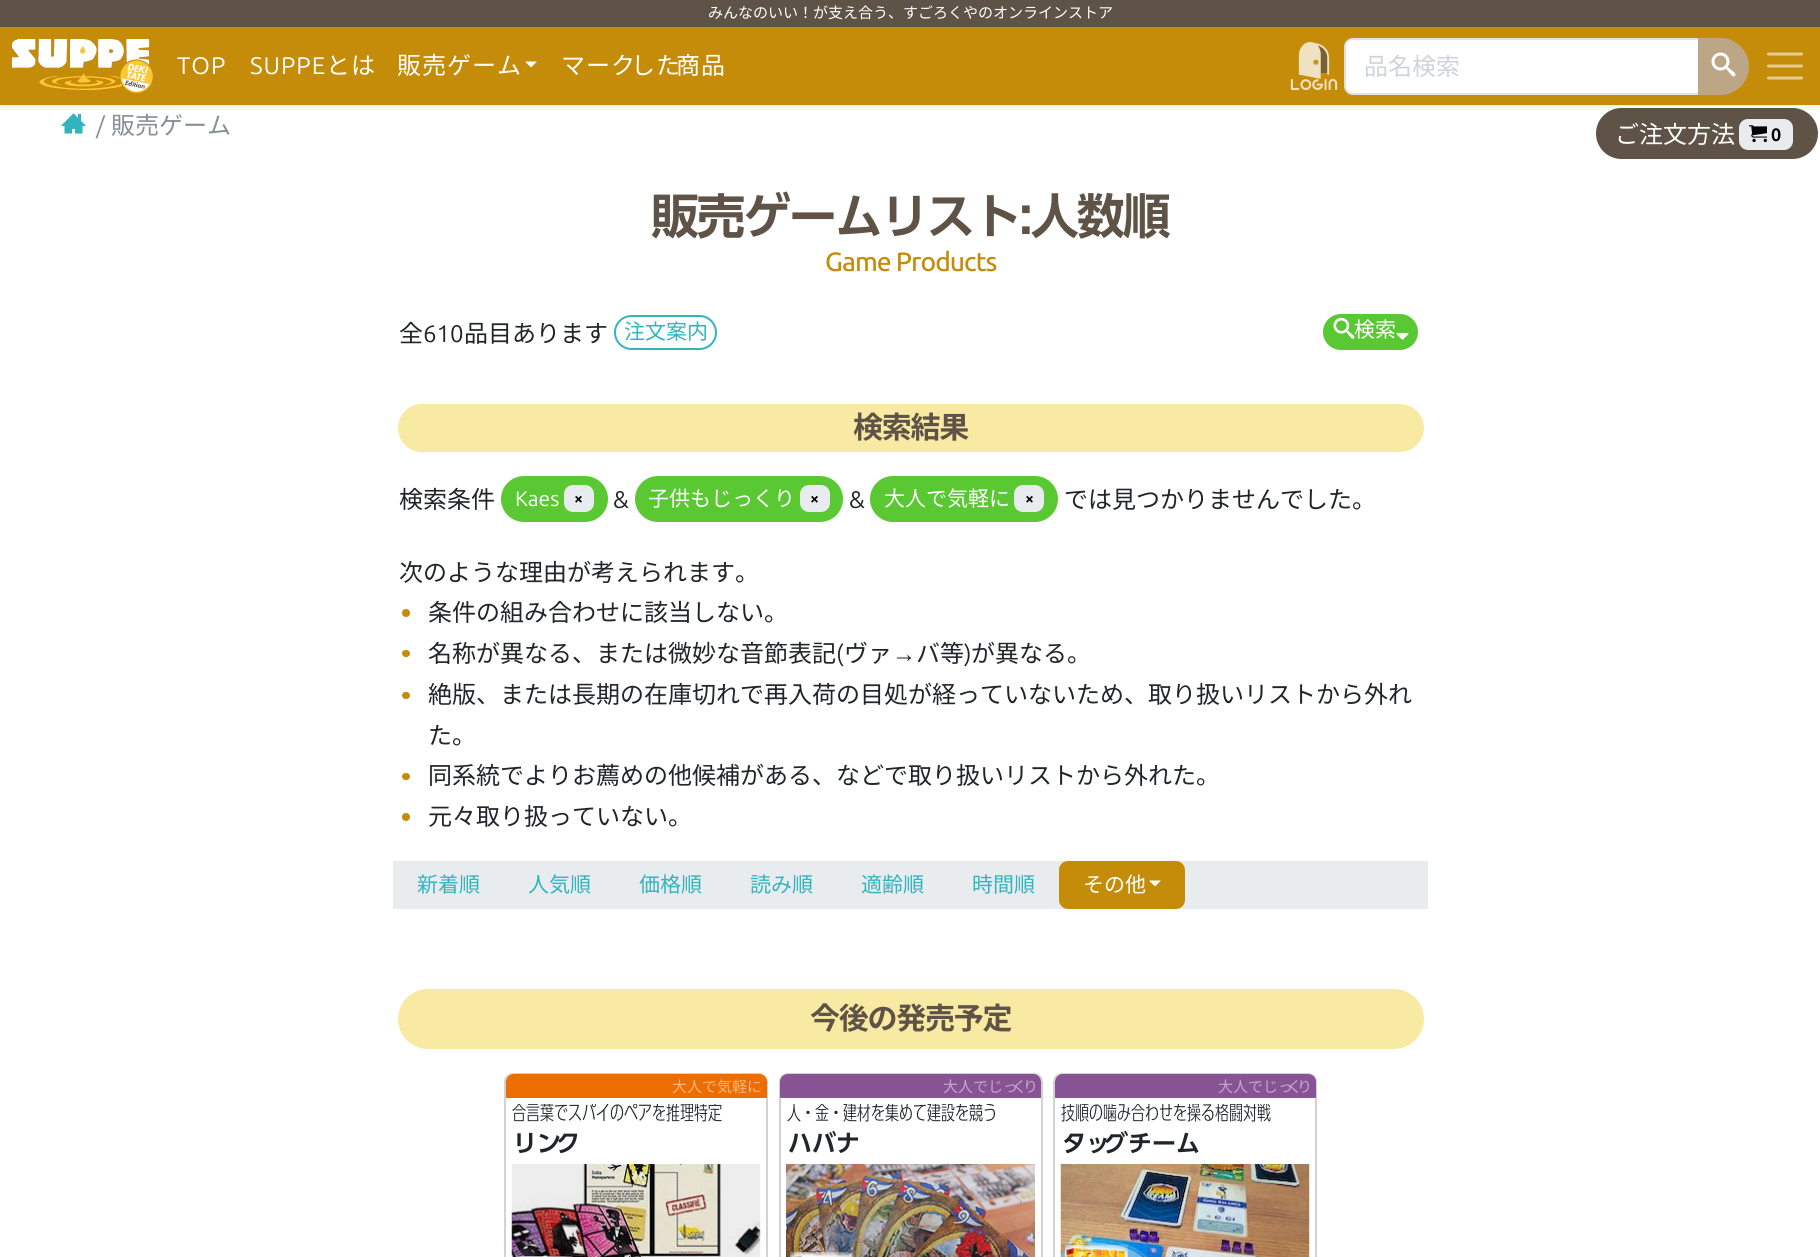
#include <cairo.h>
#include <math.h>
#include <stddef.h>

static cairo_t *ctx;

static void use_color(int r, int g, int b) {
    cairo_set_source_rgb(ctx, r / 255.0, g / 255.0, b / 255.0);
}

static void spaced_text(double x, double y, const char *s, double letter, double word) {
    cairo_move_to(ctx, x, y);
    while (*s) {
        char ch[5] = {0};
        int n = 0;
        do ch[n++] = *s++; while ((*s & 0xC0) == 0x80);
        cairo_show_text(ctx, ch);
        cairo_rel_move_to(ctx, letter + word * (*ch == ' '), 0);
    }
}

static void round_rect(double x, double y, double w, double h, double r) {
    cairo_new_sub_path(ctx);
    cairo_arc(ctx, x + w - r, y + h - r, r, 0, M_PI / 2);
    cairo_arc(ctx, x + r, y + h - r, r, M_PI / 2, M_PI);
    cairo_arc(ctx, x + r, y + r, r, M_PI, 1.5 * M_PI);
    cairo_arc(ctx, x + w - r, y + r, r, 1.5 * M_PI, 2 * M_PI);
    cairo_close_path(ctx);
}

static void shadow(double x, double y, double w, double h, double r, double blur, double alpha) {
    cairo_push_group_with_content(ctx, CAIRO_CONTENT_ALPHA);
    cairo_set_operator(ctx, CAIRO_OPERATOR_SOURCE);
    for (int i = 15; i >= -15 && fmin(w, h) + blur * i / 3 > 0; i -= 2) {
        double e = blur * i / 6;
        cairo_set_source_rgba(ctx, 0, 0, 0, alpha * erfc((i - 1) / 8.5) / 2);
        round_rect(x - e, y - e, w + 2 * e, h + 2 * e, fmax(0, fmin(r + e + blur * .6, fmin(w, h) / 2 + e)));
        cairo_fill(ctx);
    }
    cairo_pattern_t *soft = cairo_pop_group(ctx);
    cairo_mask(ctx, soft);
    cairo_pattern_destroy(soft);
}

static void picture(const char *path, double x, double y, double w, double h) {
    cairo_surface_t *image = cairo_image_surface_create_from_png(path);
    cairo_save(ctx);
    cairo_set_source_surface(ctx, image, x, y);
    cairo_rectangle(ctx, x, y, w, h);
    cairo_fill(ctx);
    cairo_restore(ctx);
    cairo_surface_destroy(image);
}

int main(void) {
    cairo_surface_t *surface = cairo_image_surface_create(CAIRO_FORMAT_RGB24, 1820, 1257);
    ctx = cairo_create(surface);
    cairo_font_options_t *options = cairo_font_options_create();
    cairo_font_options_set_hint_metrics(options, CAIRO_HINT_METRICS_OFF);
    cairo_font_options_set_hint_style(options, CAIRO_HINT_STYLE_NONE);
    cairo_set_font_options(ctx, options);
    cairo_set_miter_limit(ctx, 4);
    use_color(255, 255, 255);
    cairo_paint(ctx);
    picture("img4.png", 61, 113, 25, 21);
    use_color(94, 83, 70);
    round_rect(1597, 109, 220, 49, 24.5);
    cairo_fill_preserve(ctx);
    cairo_stroke(ctx);
    use_color(0, 0, 0);
    shadow(0, 3, 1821, 105, 0, 3, 0.07);
    use_color(94, 83, 70);
    cairo_rectangle(ctx, 0, 0, 1820, 27);
    cairo_fill(ctx);
    cairo_select_font_face(ctx, "Noto Sans JP", CAIRO_FONT_SLANT_NORMAL, CAIRO_FONT_WEIGHT_NORMAL);
    cairo_set_font_size(ctx, 15);
    use_color(255, 255, 255);
    cairo_move_to(ctx, 708, 18);
    cairo_show_text(ctx, "みんなのいい！が支え合う、すごろくやのオンラインストア");
    use_color(196, 140, 8);
    cairo_rectangle(ctx, 0, 27, 1820, 78);
    cairo_fill(ctx);
    picture("img1.png", 12, 39, 141, 54);
    cairo_select_font_face(ctx, "Ubuntu", CAIRO_FONT_SLANT_NORMAL, CAIRO_FONT_WEIGHT_NORMAL);
    cairo_set_font_size(ctx, 24);
    use_color(255, 255, 255);
    spaced_text(177, 74, "TOP", 1, 0);
    spaced_text(250, 74, "SUPPE", 1, 0);
    cairo_select_font_face(ctx, "Noto Sans JP", CAIRO_FONT_SLANT_NORMAL, CAIRO_FONT_WEIGHT_NORMAL);
    spaced_text(326, 74, "とは", 1, 0);
    spaced_text(397, 74, "販売ゲーム", 1, 0);
    cairo_new_path(ctx);
    cairo_move_to(ctx, 525, 61.5);
    cairo_line_to(ctx, 537, 61.5);
    cairo_line_to(ctx, 531, 67.5);
    cairo_close_path(ctx);
    cairo_fill(ctx);
    spaced_text(561, 74, "マーク", 1, 0);
    spaced_text(631, 74, "した", 1, 0);
    spaced_text(676, 74, "商品", 1, 0);
    picture("img2.png", 1290, 42, 48, 48);
    cairo_new_path(ctx);
    cairo_move_to(ctx, 1353, 39);
    cairo_line_to(ctx, 1699, 39);
    cairo_line_to(ctx, 1699, 94);
    cairo_line_to(ctx, 1353, 94);
    cairo_curve_to(ctx, 1348.5, 94, 1345, 90.5, 1345, 86);
    cairo_line_to(ctx, 1345, 47);
    cairo_curve_to(ctx, 1345, 42.5, 1348.5, 39, 1353, 39);
    cairo_close_path(ctx);
    cairo_fill_preserve(ctx);
    use_color(222, 226, 230);
    cairo_stroke(ctx);
    use_color(206, 212, 218);
    cairo_move_to(ctx, 1364, 75);
    cairo_show_text(ctx, "品名検索");
    use_color(188, 166, 133);
    cairo_new_path(ctx);
    cairo_move_to(ctx, 1699, 39);
    cairo_line_to(ctx, 1720.5, 39);
    cairo_curve_to(ctx, 1735.5, 39, 1748, 51.5, 1748, 66.5);
    cairo_curve_to(ctx, 1748, 81.5, 1735.5, 94, 1720.5, 94);
    cairo_line_to(ctx, 1699, 94);
    cairo_close_path(ctx);
    cairo_fill_preserve(ctx);
    cairo_stroke(ctx);
    picture("img3.png", 1711, 52, 25, 25);
    cairo_new_path(ctx);
    cairo_move_to(ctx, 1768.5, 54);
    cairo_line_to(ctx, 1801.5, 54);
    cairo_move_to(ctx, 1768.5, 66);
    cairo_line_to(ctx, 1801.5, 66);
    cairo_move_to(ctx, 1768.5, 78);
    cairo_line_to(ctx, 1801.5, 78);
    use_color(228, 203, 144);
    cairo_set_line_width(ctx, 3);
    cairo_set_line_cap(ctx, CAIRO_LINE_CAP_ROUND);
    cairo_stroke(ctx);
    cairo_select_font_face(ctx, "Ubuntu", CAIRO_FONT_SLANT_NORMAL, CAIRO_FONT_WEIGHT_NORMAL);
    use_color(134, 142, 150);
    cairo_move_to(ctx, 96, 134);
    cairo_show_text(ctx, "/");
    cairo_select_font_face(ctx, "Noto Sans JP", CAIRO_FONT_SLANT_NORMAL, CAIRO_FONT_WEIGHT_NORMAL);
    cairo_move_to(ctx, 111, 134);
    cairo_show_text(ctx, "販売ゲーム");
    use_color(255, 255, 255);
    cairo_move_to(ctx, 1615, 143);
    cairo_show_text(ctx, "ご注文方法");
    use_color(233, 236, 239);
    round_rect(1739, 119, 54, 31, 9);
    cairo_fill(ctx);
    picture("img5.png", 1749, 125, 18, 18);
    cairo_select_font_face(ctx, "Ubuntu", CAIRO_FONT_SLANT_NORMAL, CAIRO_FONT_WEIGHT_BOLD);
    cairo_set_font_size(ctx, 18);
    use_color(0, 0, 0);
    cairo_move_to(ctx, 1771, 141);
    cairo_show_text(ctx, "0");
    cairo_select_font_face(ctx, "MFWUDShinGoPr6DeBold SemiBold", CAIRO_FONT_SLANT_NORMAL, CAIRO_FONT_WEIGHT_NORMAL);
    cairo_set_font_size(ctx, 48);
    use_color(94, 83, 70);
    spaced_text(651, 234, "販売ゲームリスト:人数順", -2, 0);
    cairo_select_font_face(ctx, "Ubuntu Medium", CAIRO_FONT_SLANT_NORMAL, CAIRO_FONT_WEIGHT_NORMAL);
    cairo_set_font_size(ctx, 26.5);
    use_color(196, 140, 8);
    spaced_text(825, 271, "Game Products", -1, 0);
    cairo_select_font_face(ctx, "Noto Sans JP", CAIRO_FONT_SLANT_NORMAL, CAIRO_FONT_WEIGHT_NORMAL);
    cairo_set_font_size(ctx, 24);
    use_color(33, 37, 41);
    cairo_move_to(ctx, 399, 342);
    cairo_show_text(ctx, "全");
    cairo_select_font_face(ctx, "Ubuntu", CAIRO_FONT_SLANT_NORMAL, CAIRO_FONT_WEIGHT_NORMAL);
    cairo_move_to(ctx, 423, 342);
    cairo_show_text(ctx, "610");
    cairo_select_font_face(ctx, "Noto Sans JP", CAIRO_FONT_SLANT_NORMAL, CAIRO_FONT_WEIGHT_NORMAL);
    cairo_move_to(ctx, 464, 342);
    cairo_show_text(ctx, "品目あります");
    round_rect(615, 316, 101, 33, 16.5);
    use_color(50, 180, 190);
    cairo_set_line_width(ctx, 2);
    cairo_set_line_cap(ctx, CAIRO_LINE_CAP_BUTT);
    cairo_stroke(ctx);
    cairo_set_font_size(ctx, 21);
    cairo_move_to(ctx, 624, 339);
    cairo_show_text(ctx, "注文案内");
    use_color(90, 200, 50);
    round_rect(1324, 315, 93, 34, 17);
    cairo_fill_preserve(ctx);
    cairo_stroke(ctx);
    picture("img6.png", 1333, 317, 22, 22);
    use_color(255, 255, 255);
    cairo_move_to(ctx, 1354, 337);
    cairo_show_text(ctx, "検索");
    picture("img7.png", 1396, 333, 13, 7);
    use_color(248, 234, 163);
    round_rect(398, 404, 1026, 48, 24);
    cairo_fill(ctx);
    cairo_select_font_face(ctx, "Noto Sans JP", CAIRO_FONT_SLANT_NORMAL, CAIRO_FONT_WEIGHT_BOLD);
    cairo_set_font_size(ctx, 30);
    use_color(94, 83, 70);
    spaced_text(853, 438, "検索結果", -1.25, 0);
    cairo_select_font_face(ctx, "Noto Sans JP", CAIRO_FONT_SLANT_NORMAL, CAIRO_FONT_WEIGHT_NORMAL);
    cairo_set_font_size(ctx, 24);
    use_color(33, 37, 41);
    cairo_move_to(ctx, 399, 508);
    cairo_show_text(ctx, "検索条件");
    use_color(90, 200, 50);
    round_rect(502, 477, 105, 44, 22);
    cairo_fill_preserve(ctx);
    cairo_stroke(ctx);
    cairo_select_font_face(ctx, "Ubuntu", CAIRO_FONT_SLANT_NORMAL, CAIRO_FONT_WEIGHT_NORMAL);
    cairo_set_font_size(ctx, 21);
    use_color(255, 255, 255);
    cairo_move_to(ctx, 515, 506);
    cairo_show_text(ctx, "Kaes");
    use_color(233, 236, 239);
    round_rect(564, 485, 30, 27, 9);
    cairo_fill(ctx);
    cairo_select_font_face(ctx, "Ubuntu", CAIRO_FONT_SLANT_NORMAL, CAIRO_FONT_WEIGHT_BOLD);
    cairo_set_font_size(ctx, 16);
    use_color(0, 0, 0);
    cairo_move_to(ctx, 574, 504);
    cairo_show_text(ctx, "×");
    cairo_select_font_face(ctx, "Ubuntu", CAIRO_FONT_SLANT_NORMAL, CAIRO_FONT_WEIGHT_NORMAL);
    cairo_set_font_size(ctx, 24);
    use_color(33, 37, 41);
    cairo_move_to(ctx, 613, 508);
    cairo_show_text(ctx, "&");
    use_color(90, 200, 50);
    round_rect(636, 477, 206, 44, 22);
    cairo_fill_preserve(ctx);
    cairo_stroke(ctx);
    cairo_select_font_face(ctx, "Noto Sans JP", CAIRO_FONT_SLANT_NORMAL, CAIRO_FONT_WEIGHT_NORMAL);
    cairo_set_font_size(ctx, 21);
    use_color(255, 255, 255);
    cairo_move_to(ctx, 648, 506);
    cairo_show_text(ctx, "子供もじっくり");
    use_color(233, 236, 239);
    round_rect(800, 485, 30, 27, 9);
    cairo_fill(ctx);
    cairo_select_font_face(ctx, "Ubuntu", CAIRO_FONT_SLANT_NORMAL, CAIRO_FONT_WEIGHT_BOLD);
    cairo_set_font_size(ctx, 16);
    use_color(0, 0, 0);
    cairo_move_to(ctx, 810, 504);
    cairo_show_text(ctx, "×");
    cairo_select_font_face(ctx, "Ubuntu", CAIRO_FONT_SLANT_NORMAL, CAIRO_FONT_WEIGHT_NORMAL);
    cairo_set_font_size(ctx, 24);
    use_color(33, 37, 41);
    cairo_move_to(ctx, 849, 508);
    cairo_show_text(ctx, "&");
    use_color(90, 200, 50);
    round_rect(871, 477, 186, 44, 22);
    cairo_fill_preserve(ctx);
    cairo_stroke(ctx);
    cairo_select_font_face(ctx, "Noto Sans JP", CAIRO_FONT_SLANT_NORMAL, CAIRO_FONT_WEIGHT_NORMAL);
    cairo_set_font_size(ctx, 21);
    use_color(255, 255, 255);
    cairo_move_to(ctx, 884, 506);
    cairo_show_text(ctx, "大人で気軽に");
    use_color(233, 236, 239);
    round_rect(1014, 485, 30, 27, 9);
    cairo_fill(ctx);
    cairo_select_font_face(ctx, "Ubuntu", CAIRO_FONT_SLANT_NORMAL, CAIRO_FONT_WEIGHT_BOLD);
    cairo_set_font_size(ctx, 16);
    use_color(0, 0, 0);
    cairo_move_to(ctx, 1025, 504);
    cairo_show_text(ctx, "×");
    cairo_select_font_face(ctx, "Noto Sans JP", CAIRO_FONT_SLANT_NORMAL, CAIRO_FONT_WEIGHT_NORMAL);
    cairo_set_font_size(ctx, 24);
    use_color(33, 37, 41);
    cairo_move_to(ctx, 1064, 508);
    cairo_show_text(ctx, "では見つかりませんでした。");
    cairo_move_to(ctx, 399, 581);
    cairo_show_text(ctx, "次のような理由が考えられます。");
    use_color(196, 140, 8);
    cairo_new_path(ctx);
    cairo_arc(ctx, 406, 613, 4, 0, 2 * M_PI);
    cairo_fill(ctx);
    use_color(33, 37, 41);
    cairo_move_to(ctx, 428, 621);
    cairo_show_text(ctx, "条件の組み合わせに該当しない。");
    use_color(196, 140, 8);
    round_rect(402, 650, 8, 7, 3.5);
    cairo_fill(ctx);
    use_color(33, 37, 41);
    cairo_move_to(ctx, 428, 662);
    cairo_show_text(ctx, "名称が異なる、または微妙な音節表記");
    cairo_select_font_face(ctx, "Ubuntu", CAIRO_FONT_SLANT_NORMAL, CAIRO_FONT_WEIGHT_NORMAL);
    cairo_move_to(ctx, 836, 662);
    cairo_show_text(ctx, "(");
    cairo_select_font_face(ctx, "Noto Sans JP", CAIRO_FONT_SLANT_NORMAL, CAIRO_FONT_WEIGHT_NORMAL);
    cairo_move_to(ctx, 844, 662);
    cairo_show_text(ctx, "ヴァ");
    cairo_move_to(ctx, 916, 662);
    cairo_show_text(ctx, "バ等");
    cairo_select_font_face(ctx, "Ubuntu", CAIRO_FONT_SLANT_NORMAL, CAIRO_FONT_WEIGHT_NORMAL);
    cairo_move_to(ctx, 964, 662);
    cairo_show_text(ctx, ")");
    cairo_select_font_face(ctx, "Noto Sans JP", CAIRO_FONT_SLANT_NORMAL, CAIRO_FONT_WEIGHT_NORMAL);
    cairo_move_to(ctx, 971, 662);
    cairo_show_text(ctx, "が異なる。");
    cairo_select_font_face(ctx, "Liberation Sans", CAIRO_FONT_SLANT_NORMAL, CAIRO_FONT_WEIGHT_NORMAL);
    cairo_move_to(ctx, 892, 662);
    cairo_show_text(ctx, "→");
    use_color(196, 140, 8);
    round_rect(402, 692, 8, 7, 3.5);
    cairo_fill(ctx);
    cairo_select_font_face(ctx, "Noto Sans JP", CAIRO_FONT_SLANT_NORMAL, CAIRO_FONT_WEIGHT_NORMAL);
    use_color(33, 37, 41);
    cairo_move_to(ctx, 428, 703);
    cairo_show_text(ctx, "絶版、または長期の在庫切れで再入荷の目処が経っていないため、取り扱いリストから外れ");
    cairo_move_to(ctx, 428, 744);
    cairo_show_text(ctx, "た。");
    use_color(196, 140, 8);
    round_rect(402, 773, 8, 7, 3.5);
    cairo_fill(ctx);
    use_color(33, 37, 41);
    cairo_move_to(ctx, 428, 784);
    cairo_show_text(ctx, "同系統でよりお薦めの他候補がある、などで取り扱いリストから外れた。");
    use_color(196, 140, 8);
    cairo_new_path(ctx);
    cairo_arc(ctx, 406, 817, 4, 0, 2 * M_PI);
    cairo_fill(ctx);
    use_color(33, 37, 41);
    cairo_move_to(ctx, 428, 825);
    cairo_show_text(ctx, "元々取り扱っていない。");
    use_color(233, 236, 239);
    cairo_rectangle(ctx, 393, 861, 1035, 48);
    cairo_fill(ctx);
    cairo_set_font_size(ctx, 21);
    use_color(50, 180, 190);
    cairo_move_to(ctx, 417, 892);
    cairo_show_text(ctx, "新着順");
    cairo_move_to(ctx, 528, 892);
    cairo_show_text(ctx, "人気順");
    cairo_move_to(ctx, 639, 892);
    cairo_show_text(ctx, "価格順");
    cairo_move_to(ctx, 750, 892);
    cairo_show_text(ctx, "読み順");
    cairo_move_to(ctx, 861, 892);
    cairo_show_text(ctx, "適齢順");
    cairo_move_to(ctx, 972, 892);
    cairo_show_text(ctx, "時間順");
    use_color(196, 140, 8);
    round_rect(1059, 861, 126, 48, 9);
    cairo_fill(ctx);
    use_color(255, 255, 255);
    cairo_move_to(ctx, 1083, 892);
    cairo_show_text(ctx, "その他");
    cairo_new_path(ctx);
    cairo_move_to(ctx, 1149, 880.5);
    cairo_line_to(ctx, 1161, 880.5);
    cairo_line_to(ctx, 1155, 886.5);
    cairo_close_path(ctx);
    cairo_fill(ctx);
    use_color(248, 234, 163);
    round_rect(398, 989, 1026, 60, 30);
    cairo_fill(ctx);
    cairo_select_font_face(ctx, "Noto Sans JP", CAIRO_FONT_SLANT_NORMAL, CAIRO_FONT_WEIGHT_BOLD);
    cairo_set_font_size(ctx, 30);
    use_color(94, 83, 70);
    spaced_text(810, 1029, "今後の発売予定", -1.25, 0);
    round_rect(505, 1074, 262, 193, 8);
    use_color(210, 210, 210);
    cairo_stroke(ctx);
    use_color(237, 109, 0);
    cairo_new_path(ctx);
    cairo_move_to(ctx, 514, 1074);
    cairo_line_to(ctx, 759, 1074);
    cairo_curve_to(ctx, 763.5, 1074, 767, 1077.5, 767, 1082);
    cairo_line_to(ctx, 767, 1098);
    cairo_line_to(ctx, 506, 1098);
    cairo_line_to(ctx, 506, 1082);
    cairo_curve_to(ctx, 506, 1077.5, 509.5, 1074, 514, 1074);
    cairo_close_path(ctx);
    cairo_fill(ctx);
    cairo_select_font_face(ctx, "Noto Sans JP", CAIRO_FONT_SLANT_NORMAL, CAIRO_FONT_WEIGHT_NORMAL);
    cairo_set_font_size(ctx, 15);
    use_color(246, 182, 128);
    cairo_move_to(ctx, 672, 1092);
    cairo_show_text(ctx, "大人で気軽に");
    cairo_save(ctx);
    cairo_rectangle(ctx, 509, 1104, 258, 20);
    cairo_clip(ctx);
    cairo_select_font_face(ctx, "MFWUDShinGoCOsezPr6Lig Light", CAIRO_FONT_SLANT_NORMAL, CAIRO_FONT_WEIGHT_NORMAL);
    cairo_set_font_size(ctx, 20);
    use_color(33, 37, 41);
    cairo_move_to(ctx, 512, 1120);
    cairo_show_text(ctx, "合言葉でスパイのペアを推理特定");
    cairo_restore(ctx);
    cairo_select_font_face(ctx, "MFWUDShinGoPr6DeBold SemiBold", CAIRO_FONT_SLANT_NORMAL, CAIRO_FONT_WEIGHT_NORMAL);
    cairo_set_font_size(ctx, 24);
    use_color(33, 37, 41);
    cairo_move_to(ctx, 513, 1152);
    cairo_show_text(ctx, "リン");
    cairo_move_to(ctx, 556, 1152);
    cairo_show_text(ctx, "ク");
    picture("img8.png", 511, 1164, 250, 93);
    picture("img9.png", 516, 1256, 57, 1);
    round_rect(780, 1074, 262, 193, 8);
    use_color(210, 210, 210);
    cairo_stroke(ctx);
    use_color(136, 83, 148);
    cairo_new_path(ctx);
    cairo_move_to(ctx, 788, 1074);
    cairo_line_to(ctx, 1033, 1074);
    cairo_curve_to(ctx, 1037.5, 1074, 1041, 1077.5, 1041, 1082);
    cairo_line_to(ctx, 1041, 1098);
    cairo_line_to(ctx, 780, 1098);
    cairo_line_to(ctx, 780, 1082);
    cairo_curve_to(ctx, 780, 1077.5, 783.5, 1074, 788, 1074);
    cairo_close_path(ctx);
    cairo_fill(ctx);
    cairo_select_font_face(ctx, "Noto Sans JP", CAIRO_FONT_SLANT_NORMAL, CAIRO_FONT_WEIGHT_NORMAL);
    cairo_set_font_size(ctx, 15);
    use_color(196, 169, 202);
    cairo_move_to(ctx, 943, 1092);
    cairo_show_text(ctx, "大人でじっ");
    cairo_move_to(ctx, 1012, 1092);
    cairo_show_text(ctx, "く");
    cairo_move_to(ctx, 1023, 1092);
    cairo_show_text(ctx, "り");
    cairo_save(ctx);
    cairo_rectangle(ctx, 783, 1104, 258, 20);
    cairo_clip(ctx);
    cairo_select_font_face(ctx, "MFWUDShinGoCOsezPr6Lig Light", CAIRO_FONT_SLANT_NORMAL, CAIRO_FONT_WEIGHT_NORMAL);
    cairo_set_font_size(ctx, 20);
    use_color(33, 37, 41);
    cairo_move_to(ctx, 787, 1120);
    cairo_show_text(ctx, "人・金・建材を集めて建設を競う");
    cairo_restore(ctx);
    cairo_select_font_face(ctx, "MFWUDShinGoPr6DeBold SemiBold", CAIRO_FONT_SLANT_NORMAL, CAIRO_FONT_WEIGHT_NORMAL);
    cairo_set_font_size(ctx, 24);
    use_color(33, 37, 41);
    cairo_move_to(ctx, 788, 1152);
    cairo_show_text(ctx, "ハバナ");
    picture("img10.png", 786, 1164, 249, 93);
    picture("img11.png", 790, 1252, 65, 5);
    round_rect(1054, 1074, 262, 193, 8);
    use_color(210, 210, 210);
    cairo_stroke(ctx);
    use_color(136, 83, 148);
    cairo_new_path(ctx);
    cairo_move_to(ctx, 1063, 1074);
    cairo_line_to(ctx, 1308, 1074);
    cairo_curve_to(ctx, 1312.5, 1074, 1316, 1077.5, 1316, 1082);
    cairo_line_to(ctx, 1316, 1098);
    cairo_line_to(ctx, 1055, 1098);
    cairo_line_to(ctx, 1055, 1082);
    cairo_curve_to(ctx, 1055, 1077.5, 1058.5, 1074, 1063, 1074);
    cairo_close_path(ctx);
    cairo_fill(ctx);
    cairo_select_font_face(ctx, "Noto Sans JP", CAIRO_FONT_SLANT_NORMAL, CAIRO_FONT_WEIGHT_NORMAL);
    cairo_set_font_size(ctx, 15);
    use_color(196, 169, 202);
    cairo_move_to(ctx, 1218, 1092);
    cairo_show_text(ctx, "大人でじっ");
    cairo_move_to(ctx, 1287, 1092);
    cairo_show_text(ctx, "く");
    cairo_move_to(ctx, 1297, 1092);
    cairo_show_text(ctx, "り");
    cairo_save(ctx);
    cairo_rectangle(ctx, 1058, 1104, 258, 20);
    cairo_clip(ctx);
    cairo_select_font_face(ctx, "MFWUDShinGoCOsezPr6Lig Light", CAIRO_FONT_SLANT_NORMAL, CAIRO_FONT_WEIGHT_NORMAL);
    cairo_set_font_size(ctx, 20);
    use_color(33, 37, 41);
    cairo_move_to(ctx, 1061, 1120);
    cairo_show_text(ctx, "技順の噛み合わせを操る格闘対戦");
    cairo_restore(ctx);
    cairo_select_font_face(ctx, "MFWUDShinGoPr6DeBold SemiBold", CAIRO_FONT_SLANT_NORMAL, CAIRO_FONT_WEIGHT_NORMAL);
    cairo_set_font_size(ctx, 24);
    use_color(33, 37, 41);
    cairo_move_to(ctx, 1062, 1152);
    cairo_show_text(ctx, "タッ");
    cairo_move_to(ctx, 1104, 1152);
    cairo_show_text(ctx, "グチーム");
    picture("img12.png", 1060, 1164, 250, 93);
    picture("img13.png", 1065, 1245, 63, 12);
    cairo_surface_write_to_png(surface, "result.png");
    cairo_font_options_destroy(options);
    cairo_destroy(ctx);
    cairo_surface_destroy(surface);
    return 0;
}
